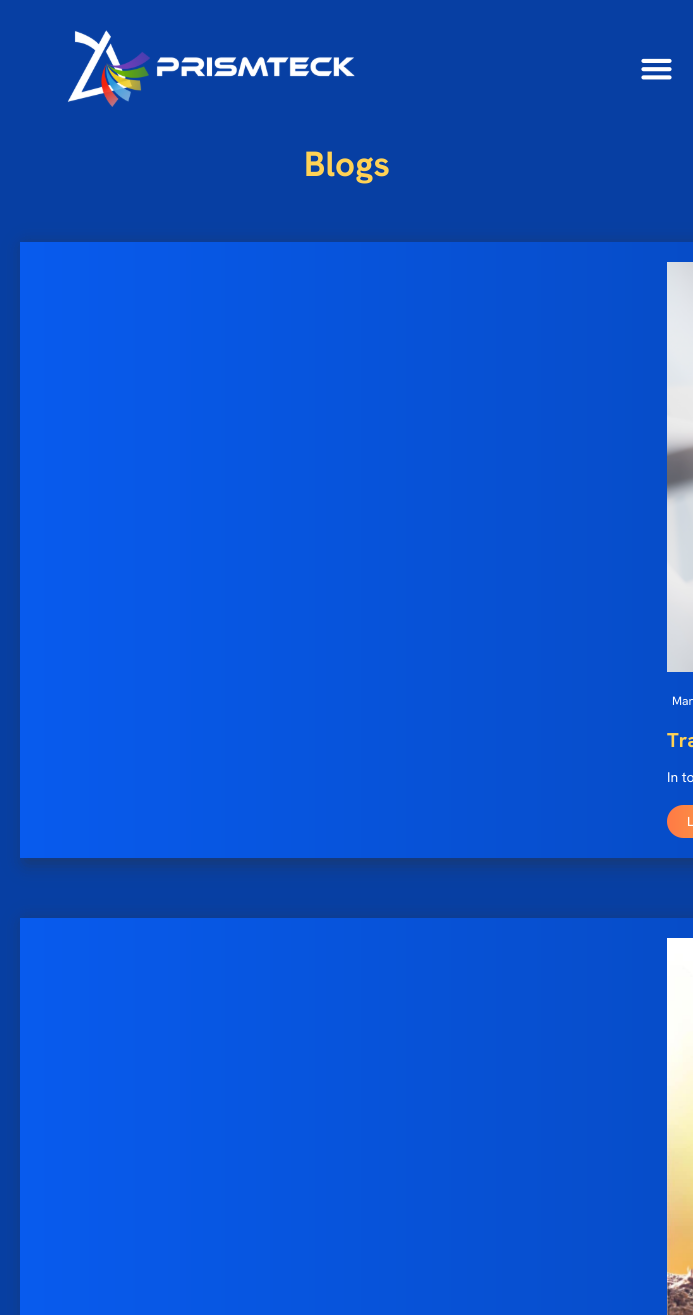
#include <cairo.h>
#include <math.h>
#include <stddef.h>

static cairo_t *ctx;

static void use_color(int r, int g, int b) {
    cairo_set_source_rgb(ctx, r / 255.0, g / 255.0, b / 255.0);
}

static void round_rect(double x, double y, double w, double h, double r) {
    cairo_new_sub_path(ctx);
    cairo_arc(ctx, x + w - r, y + h - r, r, 0, M_PI / 2);
    cairo_arc(ctx, x + r, y + h - r, r, M_PI / 2, M_PI);
    cairo_arc(ctx, x + r, y + r, r, M_PI, 1.5 * M_PI);
    cairo_arc(ctx, x + w - r, y + r, r, 1.5 * M_PI, 2 * M_PI);
    cairo_close_path(ctx);
}

static void shadow(double x, double y, double w, double h, double r, double blur, double alpha) {
    cairo_push_group_with_content(ctx, CAIRO_CONTENT_ALPHA);
    cairo_set_operator(ctx, CAIRO_OPERATOR_SOURCE);
    for (int i = 15; i >= -15 && fmin(w, h) + blur * i / 3 > 0; i -= 2) {
        double e = blur * i / 6;
        cairo_set_source_rgba(ctx, 0, 0, 0, alpha * erfc((i - 1) / 8.5) / 2);
        round_rect(x - e, y - e, w + 2 * e, h + 2 * e, fmax(0, fmin(r + e + blur * .6, fmin(w, h) / 2 + e)));
        cairo_fill(ctx);
    }
    cairo_pattern_t *soft = cairo_pop_group(ctx);
    cairo_mask(ctx, soft);
    cairo_pattern_destroy(soft);
}

static void picture(const char *path, double x, double y, double w, double h) {
    cairo_surface_t *image = cairo_image_surface_create_from_png(path);
    cairo_save(ctx);
    cairo_set_source_surface(ctx, image, x, y);
    cairo_rectangle(ctx, x, y, w, h);
    cairo_fill(ctx);
    cairo_restore(ctx);
    cairo_surface_destroy(image);
}

int main(void) {
    cairo_surface_t *surface = cairo_image_surface_create(CAIRO_FORMAT_RGB24, 693, 1315);
    ctx = cairo_create(surface);
    cairo_font_options_t *options = cairo_font_options_create();
    cairo_font_options_set_hint_metrics(options, CAIRO_HINT_METRICS_OFF);
    cairo_font_options_set_hint_style(options, CAIRO_HINT_STYLE_NONE);
    cairo_set_font_options(ctx, options);
    cairo_set_miter_limit(ctx, 4);
    cairo_pattern_t *gradient;
    use_color(7, 63, 163);
    cairo_paint(ctx);
    picture("img1.png", 67, 30, 288, 77);
    picture("img2.png", 641, 58, 31, 22);
    cairo_select_font_face(ctx, "Hanken Grotesk", CAIRO_FONT_SLANT_NORMAL, CAIRO_FONT_WEIGHT_BOLD);
    cairo_set_font_size(ctx, 35);
    use_color(255, 210, 85);
    cairo_move_to(ctx, 304, 176);
    cairo_show_text(ctx, "Blogs");
    use_color(48, 48, 48);
    shadow(25, 247, 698, 616, 0, 10, 0.5);
    gradient = cairo_pattern_create_linear(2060, 550, 20, 550);
    cairo_pattern_add_color_stop_rgba(gradient, 0, 0.012, 0.18, 0.478, 1);
    cairo_pattern_add_color_stop_rgba(gradient, 1, 0.031, 0.357, 0.933, 1);
    cairo_set_source(ctx, gradient);
    cairo_pattern_destroy(gradient);
    cairo_rectangle(ctx, 20, 242, 673, 616);
    cairo_fill(ctx);
    picture("img3.png", 667, 262, 26, 410);
    cairo_select_font_face(ctx, "Hanken Grotesk", CAIRO_FONT_SLANT_NORMAL, CAIRO_FONT_WEIGHT_NORMAL);
    cairo_set_font_size(ctx, 12);
    use_color(255, 255, 255);
    cairo_move_to(ctx, 672, 705);
    cairo_show_text(ctx, "Mar");
    cairo_select_font_face(ctx, "Hanken Grotesk", CAIRO_FONT_SLANT_NORMAL, CAIRO_FONT_WEIGHT_BOLD);
    cairo_set_font_size(ctx, 20);
    use_color(255, 210, 85);
    cairo_move_to(ctx, 667, 747);
    cairo_show_text(ctx, "Tra");
    cairo_select_font_face(ctx, "Hanken Grotesk", CAIRO_FONT_SLANT_NORMAL, CAIRO_FONT_WEIGHT_NORMAL);
    cairo_set_font_size(ctx, 14);
    use_color(255, 255, 255);
    cairo_move_to(ctx, 667, 782);
    cairo_show_text(ctx, "In to");
    gradient = cairo_pattern_create_linear(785, 822, 667, 822);
    cairo_pattern_add_color_stop_rgba(gradient, 0, 0.937, 0.761, 0.271, 1);
    cairo_pattern_add_color_stop_rgba(gradient, 1, 1, 0.478, 0.271, 1);
    cairo_set_source(ctx, gradient);
    cairo_pattern_destroy(gradient);
    round_rect(667, 805, 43, 33, 16.5);
    cairo_fill(ctx);
    cairo_select_font_face(ctx, "Hanken Grotesk Medium", CAIRO_FONT_SLANT_NORMAL, CAIRO_FONT_WEIGHT_NORMAL);
    cairo_set_font_size(ctx, 13);
    use_color(255, 255, 255);
    cairo_move_to(ctx, 687, 826);
    cairo_show_text(ctx, "L");
    use_color(48, 48, 48);
    shadow(25, 923, 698, 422, 0, 10, 0.5);
    gradient = cairo_pattern_create_linear(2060, 1238, 20, 1238);
    cairo_pattern_add_color_stop_rgba(gradient, 0, 0.012, 0.18, 0.478, 1);
    cairo_pattern_add_color_stop_rgba(gradient, 1, 0.031, 0.357, 0.933, 1);
    cairo_set_source(ctx, gradient);
    cairo_pattern_destroy(gradient);
    cairo_rectangle(ctx, 20, 918, 673, 397);
    cairo_fill(ctx);
    picture("img4.png", 667, 938, 26, 377);
    cairo_surface_write_to_png(surface, "result.png");
    cairo_font_options_destroy(options);
    cairo_destroy(ctx);
    cairo_surface_destroy(surface);
    return 0;
}
